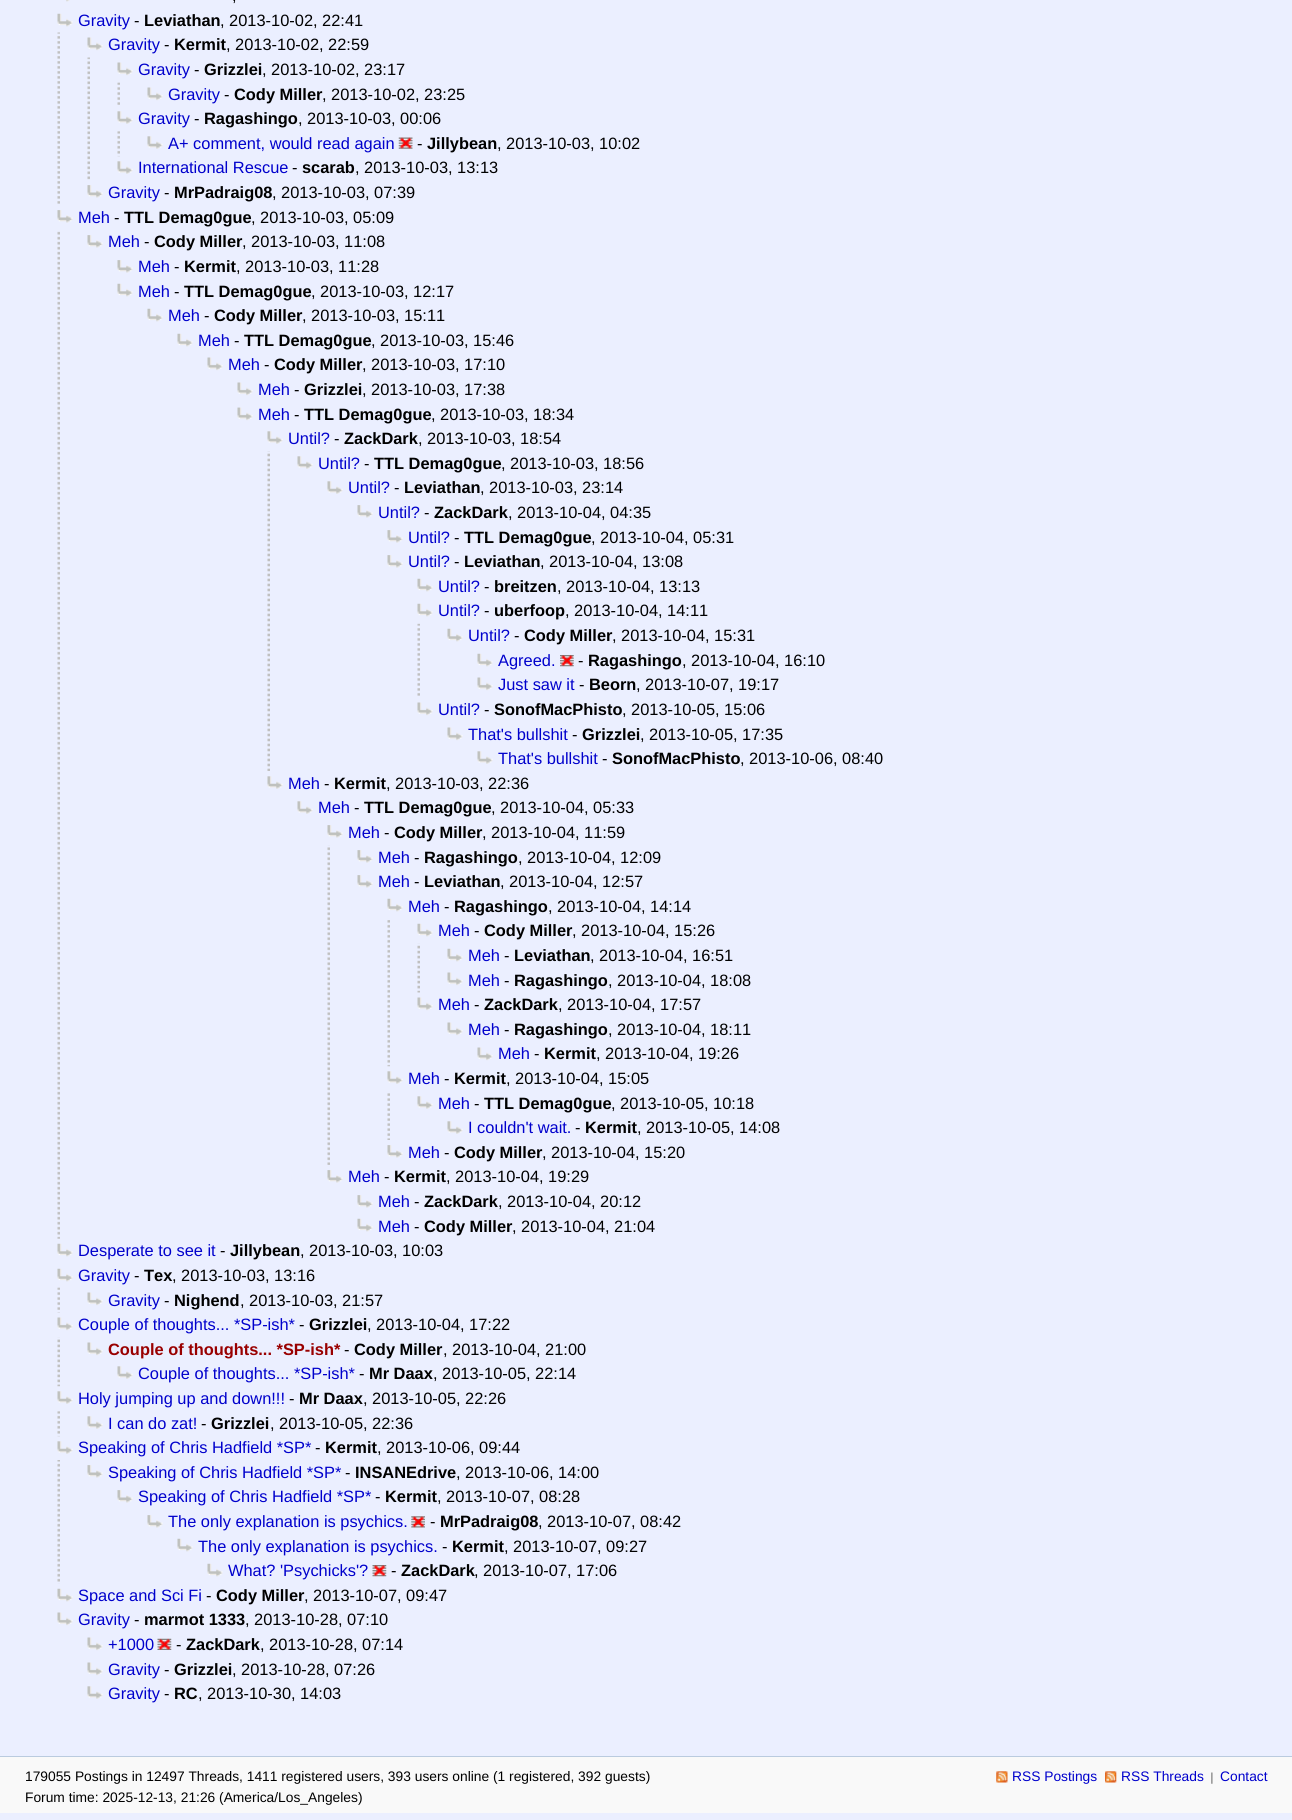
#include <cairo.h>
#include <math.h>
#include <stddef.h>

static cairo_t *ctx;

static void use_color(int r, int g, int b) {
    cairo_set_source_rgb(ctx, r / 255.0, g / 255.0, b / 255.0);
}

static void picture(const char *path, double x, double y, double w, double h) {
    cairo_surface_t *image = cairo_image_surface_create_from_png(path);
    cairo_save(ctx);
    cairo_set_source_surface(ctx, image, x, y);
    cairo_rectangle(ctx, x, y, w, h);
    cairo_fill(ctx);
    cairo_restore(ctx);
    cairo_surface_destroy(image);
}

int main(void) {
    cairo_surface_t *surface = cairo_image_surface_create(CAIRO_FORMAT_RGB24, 1292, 1820);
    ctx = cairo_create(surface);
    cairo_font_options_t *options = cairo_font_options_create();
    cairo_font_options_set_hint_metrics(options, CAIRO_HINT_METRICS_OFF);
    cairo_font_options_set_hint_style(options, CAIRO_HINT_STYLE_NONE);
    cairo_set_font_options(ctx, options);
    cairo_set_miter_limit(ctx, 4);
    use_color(235, 239, 255);
    cairo_paint(ctx);
    picture("img1.png", 66, 0, 4, 2);
    cairo_select_font_face(ctx, "Liberation Sans", CAIRO_FONT_SLANT_NORMAL, CAIRO_FONT_WEIGHT_NORMAL);
    cairo_set_font_size(ctx, 16.4);
    use_color(0, 0, 0);
    cairo_move_to(ctx, 232, 1);
    cairo_show_text(ctx, ",");
    picture("img2.png", 57, 13, 16, 14);
    use_color(0, 0, 204);
    cairo_move_to(ctx, 78, 26);
    cairo_show_text(ctx, "Gravity");
    use_color(0, 0, 0);
    cairo_move_to(ctx, 134, 26);
    cairo_show_text(ctx, "-");
    cairo_select_font_face(ctx, "Liberation Sans", CAIRO_FONT_SLANT_NORMAL, CAIRO_FONT_WEIGHT_BOLD);
    cairo_move_to(ctx, 144, 26);
    cairo_show_text(ctx, "Leviathan");
    cairo_select_font_face(ctx, "Liberation Sans", CAIRO_FONT_SLANT_NORMAL, CAIRO_FONT_WEIGHT_NORMAL);
    cairo_move_to(ctx, 220, 26);
    cairo_show_text(ctx, ", 2013-10-02, 22:41");
    picture("img3.png", 57, 32, 3, 172);
    picture("img4.png", 87, 37, 16, 14);
    use_color(0, 0, 204);
    cairo_move_to(ctx, 108, 50);
    cairo_show_text(ctx, "Gravity");
    use_color(0, 0, 0);
    cairo_move_to(ctx, 164, 50);
    cairo_show_text(ctx, "-");
    cairo_select_font_face(ctx, "Liberation Sans", CAIRO_FONT_SLANT_NORMAL, CAIRO_FONT_WEIGHT_BOLD);
    cairo_move_to(ctx, 174, 50);
    cairo_show_text(ctx, "Kermit");
    cairo_select_font_face(ctx, "Liberation Sans", CAIRO_FONT_SLANT_NORMAL, CAIRO_FONT_WEIGHT_NORMAL);
    cairo_move_to(ctx, 226, 50);
    cairo_show_text(ctx, ", 2013-10-02, 22:59");
    picture("img5.png", 87, 57, 3, 123);
    picture("img4.png", 117, 62, 16, 14);
    use_color(0, 0, 204);
    cairo_move_to(ctx, 138, 75);
    cairo_show_text(ctx, "Gravity");
    use_color(0, 0, 0);
    cairo_move_to(ctx, 194, 75);
    cairo_show_text(ctx, "-");
    cairo_select_font_face(ctx, "Liberation Sans", CAIRO_FONT_SLANT_NORMAL, CAIRO_FONT_WEIGHT_BOLD);
    cairo_move_to(ctx, 204, 75);
    cairo_show_text(ctx, "Grizzlei");
    cairo_select_font_face(ctx, "Liberation Sans", CAIRO_FONT_SLANT_NORMAL, CAIRO_FONT_WEIGHT_NORMAL);
    cairo_move_to(ctx, 262, 75);
    cairo_show_text(ctx, ", 2013-10-02, 23:17");
    picture("img6.png", 117, 82, 3, 23);
    picture("img4.png", 147, 87, 16, 14);
    use_color(0, 0, 204);
    cairo_move_to(ctx, 168, 100);
    cairo_show_text(ctx, "Gravity");
    use_color(0, 0, 0);
    cairo_move_to(ctx, 224, 100);
    cairo_show_text(ctx, "-");
    cairo_select_font_face(ctx, "Liberation Sans", CAIRO_FONT_SLANT_NORMAL, CAIRO_FONT_WEIGHT_BOLD);
    cairo_move_to(ctx, 234, 100);
    cairo_show_text(ctx, "Cody Miller");
    cairo_select_font_face(ctx, "Liberation Sans", CAIRO_FONT_SLANT_NORMAL, CAIRO_FONT_WEIGHT_NORMAL);
    cairo_move_to(ctx, 322, 100);
    cairo_show_text(ctx, ", 2013-10-02, 23:25");
    picture("img7.png", 117, 111, 16, 13);
    use_color(0, 0, 204);
    cairo_move_to(ctx, 138, 124);
    cairo_show_text(ctx, "Gravity");
    use_color(0, 0, 0);
    cairo_move_to(ctx, 194, 124);
    cairo_show_text(ctx, "-");
    cairo_select_font_face(ctx, "Liberation Sans", CAIRO_FONT_SLANT_NORMAL, CAIRO_FONT_WEIGHT_BOLD);
    cairo_move_to(ctx, 204, 124);
    cairo_show_text(ctx, "Ragashingo");
    cairo_select_font_face(ctx, "Liberation Sans", CAIRO_FONT_SLANT_NORMAL, CAIRO_FONT_WEIGHT_NORMAL);
    cairo_move_to(ctx, 298, 124);
    cairo_show_text(ctx, ", 2013-10-03, 00:06");
    picture("img8.png", 117, 131, 3, 26);
    picture("img7.png", 147, 136, 16, 13);
    use_color(0, 0, 204);
    cairo_move_to(ctx, 168, 149);
    cairo_show_text(ctx, "A+ comment, would read again");
    picture("img9.png", 398, 137, 15, 12);
    use_color(0, 0, 0);
    cairo_move_to(ctx, 417, 149);
    cairo_show_text(ctx, "-");
    cairo_select_font_face(ctx, "Liberation Sans", CAIRO_FONT_SLANT_NORMAL, CAIRO_FONT_WEIGHT_BOLD);
    cairo_move_to(ctx, 427, 149);
    cairo_show_text(ctx, "Jillybean");
    cairo_select_font_face(ctx, "Liberation Sans", CAIRO_FONT_SLANT_NORMAL, CAIRO_FONT_WEIGHT_NORMAL);
    cairo_move_to(ctx, 497, 149);
    cairo_show_text(ctx, ", 2013-10-03, 10:02");
    picture("img10.png", 117, 161, 16, 13);
    use_color(0, 0, 204);
    cairo_move_to(ctx, 138, 173);
    cairo_show_text(ctx, "International Rescue");
    use_color(0, 0, 0);
    cairo_move_to(ctx, 292, 173);
    cairo_show_text(ctx, "-");
    cairo_select_font_face(ctx, "Liberation Sans", CAIRO_FONT_SLANT_NORMAL, CAIRO_FONT_WEIGHT_BOLD);
    cairo_move_to(ctx, 302, 173);
    cairo_show_text(ctx, "scarab");
    cairo_select_font_face(ctx, "Liberation Sans", CAIRO_FONT_SLANT_NORMAL, CAIRO_FONT_WEIGHT_NORMAL);
    cairo_move_to(ctx, 355, 173);
    cairo_show_text(ctx, ", 2013-10-03, 13:13");
    picture("img11.png", 87, 185, 16, 13);
    use_color(0, 0, 204);
    cairo_move_to(ctx, 108, 198);
    cairo_show_text(ctx, "Gravity");
    use_color(0, 0, 0);
    cairo_move_to(ctx, 164, 198);
    cairo_show_text(ctx, "-");
    cairo_select_font_face(ctx, "Liberation Sans", CAIRO_FONT_SLANT_NORMAL, CAIRO_FONT_WEIGHT_BOLD);
    cairo_move_to(ctx, 174, 198);
    cairo_show_text(ctx, "MrPadraig08");
    cairo_select_font_face(ctx, "Liberation Sans", CAIRO_FONT_SLANT_NORMAL, CAIRO_FONT_WEIGHT_NORMAL);
    cairo_move_to(ctx, 272, 198);
    cairo_show_text(ctx, ", 2013-10-03, 07:39");
    picture("img12.png", 57, 210, 16, 13);
    use_color(0, 0, 204);
    cairo_move_to(ctx, 78, 223);
    cairo_show_text(ctx, "Meh");
    use_color(0, 0, 0);
    cairo_move_to(ctx, 114, 223);
    cairo_show_text(ctx, "-");
    cairo_select_font_face(ctx, "Liberation Sans", CAIRO_FONT_SLANT_NORMAL, CAIRO_FONT_WEIGHT_BOLD);
    cairo_move_to(ctx, 124, 223);
    cairo_show_text(ctx, "TTL Demag0gue");
    cairo_select_font_face(ctx, "Liberation Sans", CAIRO_FONT_SLANT_NORMAL, CAIRO_FONT_WEIGHT_NORMAL);
    cairo_move_to(ctx, 251, 223);
    cairo_show_text(ctx, ", 2013-10-03, 05:09");
    picture("img13.png", 57, 231, 3, 1008);
    picture("img11.png", 87, 235, 16, 13);
    use_color(0, 0, 204);
    cairo_move_to(ctx, 108, 247);
    cairo_show_text(ctx, "Meh");
    use_color(0, 0, 0);
    cairo_move_to(ctx, 144, 247);
    cairo_show_text(ctx, "-");
    cairo_select_font_face(ctx, "Liberation Sans", CAIRO_FONT_SLANT_NORMAL, CAIRO_FONT_WEIGHT_BOLD);
    cairo_move_to(ctx, 154, 247);
    cairo_show_text(ctx, "Cody Miller");
    cairo_select_font_face(ctx, "Liberation Sans", CAIRO_FONT_SLANT_NORMAL, CAIRO_FONT_WEIGHT_NORMAL);
    cairo_move_to(ctx, 242, 247);
    cairo_show_text(ctx, ", 2013-10-03, 11:08");
    picture("img11.png", 117, 260, 16, 13);
    use_color(0, 0, 204);
    cairo_move_to(ctx, 138, 272);
    cairo_show_text(ctx, "Meh");
    use_color(0, 0, 0);
    cairo_move_to(ctx, 174, 272);
    cairo_show_text(ctx, "-");
    cairo_select_font_face(ctx, "Liberation Sans", CAIRO_FONT_SLANT_NORMAL, CAIRO_FONT_WEIGHT_BOLD);
    cairo_move_to(ctx, 184, 272);
    cairo_show_text(ctx, "Kermit");
    cairo_select_font_face(ctx, "Liberation Sans", CAIRO_FONT_SLANT_NORMAL, CAIRO_FONT_WEIGHT_NORMAL);
    cairo_move_to(ctx, 236, 272);
    cairo_show_text(ctx, ", 2013-10-03, 11:28");
    picture("img14.png", 117, 283, 16, 14);
    use_color(0, 0, 204);
    cairo_move_to(ctx, 138, 297);
    cairo_show_text(ctx, "Meh");
    use_color(0, 0, 0);
    cairo_move_to(ctx, 174, 297);
    cairo_show_text(ctx, "-");
    cairo_select_font_face(ctx, "Liberation Sans", CAIRO_FONT_SLANT_NORMAL, CAIRO_FONT_WEIGHT_BOLD);
    cairo_move_to(ctx, 184, 297);
    cairo_show_text(ctx, "TTL Demag0gue");
    cairo_select_font_face(ctx, "Liberation Sans", CAIRO_FONT_SLANT_NORMAL, CAIRO_FONT_WEIGHT_NORMAL);
    cairo_move_to(ctx, 311, 297);
    cairo_show_text(ctx, ", 2013-10-03, 12:17");
    picture("img14.png", 147, 308, 16, 14);
    use_color(0, 0, 204);
    cairo_move_to(ctx, 168, 321);
    cairo_show_text(ctx, "Meh");
    use_color(0, 0, 0);
    cairo_move_to(ctx, 204, 321);
    cairo_show_text(ctx, "-");
    cairo_select_font_face(ctx, "Liberation Sans", CAIRO_FONT_SLANT_NORMAL, CAIRO_FONT_WEIGHT_BOLD);
    cairo_move_to(ctx, 214, 321);
    cairo_show_text(ctx, "Cody Miller");
    cairo_select_font_face(ctx, "Liberation Sans", CAIRO_FONT_SLANT_NORMAL, CAIRO_FONT_WEIGHT_NORMAL);
    cairo_move_to(ctx, 302, 321);
    cairo_show_text(ctx, ", 2013-10-03, 15:11");
    picture("img14.png", 177, 333, 16, 14);
    use_color(0, 0, 204);
    cairo_move_to(ctx, 198, 346);
    cairo_show_text(ctx, "Meh");
    use_color(0, 0, 0);
    cairo_move_to(ctx, 234, 346);
    cairo_show_text(ctx, "-");
    cairo_select_font_face(ctx, "Liberation Sans", CAIRO_FONT_SLANT_NORMAL, CAIRO_FONT_WEIGHT_BOLD);
    cairo_move_to(ctx, 244, 346);
    cairo_show_text(ctx, "TTL Demag0gue");
    cairo_select_font_face(ctx, "Liberation Sans", CAIRO_FONT_SLANT_NORMAL, CAIRO_FONT_WEIGHT_NORMAL);
    cairo_move_to(ctx, 371, 346);
    cairo_show_text(ctx, ", 2013-10-03, 15:46");
    picture("img4.png", 207, 357, 16, 14);
    use_color(0, 0, 204);
    cairo_move_to(ctx, 228, 370);
    cairo_show_text(ctx, "Meh");
    use_color(0, 0, 0);
    cairo_move_to(ctx, 264, 370);
    cairo_show_text(ctx, "-");
    cairo_select_font_face(ctx, "Liberation Sans", CAIRO_FONT_SLANT_NORMAL, CAIRO_FONT_WEIGHT_BOLD);
    cairo_move_to(ctx, 274, 370);
    cairo_show_text(ctx, "Cody Miller");
    cairo_select_font_face(ctx, "Liberation Sans", CAIRO_FONT_SLANT_NORMAL, CAIRO_FONT_WEIGHT_NORMAL);
    cairo_move_to(ctx, 362, 370);
    cairo_show_text(ctx, ", 2013-10-03, 17:10");
    picture("img4.png", 237, 382, 16, 14);
    use_color(0, 0, 204);
    cairo_move_to(ctx, 258, 395);
    cairo_show_text(ctx, "Meh");
    use_color(0, 0, 0);
    cairo_move_to(ctx, 294, 395);
    cairo_show_text(ctx, "-");
    cairo_select_font_face(ctx, "Liberation Sans", CAIRO_FONT_SLANT_NORMAL, CAIRO_FONT_WEIGHT_BOLD);
    cairo_move_to(ctx, 304, 395);
    cairo_show_text(ctx, "Grizzlei");
    cairo_select_font_face(ctx, "Liberation Sans", CAIRO_FONT_SLANT_NORMAL, CAIRO_FONT_WEIGHT_NORMAL);
    cairo_move_to(ctx, 362, 395);
    cairo_show_text(ctx, ", 2013-10-03, 17:38");
    picture("img15.png", 237, 407, 16, 14);
    use_color(0, 0, 204);
    cairo_move_to(ctx, 258, 420);
    cairo_show_text(ctx, "Meh");
    use_color(0, 0, 0);
    cairo_move_to(ctx, 294, 420);
    cairo_show_text(ctx, "-");
    cairo_select_font_face(ctx, "Liberation Sans", CAIRO_FONT_SLANT_NORMAL, CAIRO_FONT_WEIGHT_BOLD);
    cairo_move_to(ctx, 304, 420);
    cairo_show_text(ctx, "TTL Demag0gue");
    cairo_select_font_face(ctx, "Liberation Sans", CAIRO_FONT_SLANT_NORMAL, CAIRO_FONT_WEIGHT_NORMAL);
    cairo_move_to(ctx, 431, 420);
    cairo_show_text(ctx, ", 2013-10-03, 18:34");
    picture("img7.png", 267, 431, 16, 13);
    use_color(0, 0, 204);
    cairo_move_to(ctx, 288, 444);
    cairo_show_text(ctx, "Until?");
    use_color(0, 0, 0);
    cairo_move_to(ctx, 334, 444);
    cairo_show_text(ctx, "-");
    cairo_select_font_face(ctx, "Liberation Sans", CAIRO_FONT_SLANT_NORMAL, CAIRO_FONT_WEIGHT_BOLD);
    cairo_move_to(ctx, 344, 444);
    cairo_show_text(ctx, "ZackDark");
    cairo_select_font_face(ctx, "Liberation Sans", CAIRO_FONT_SLANT_NORMAL, CAIRO_FONT_WEIGHT_NORMAL);
    cairo_move_to(ctx, 418, 444);
    cairo_show_text(ctx, ", 2013-10-03, 18:54");
    picture("img16.png", 267, 451, 3, 320);
    picture("img7.png", 297, 456, 16, 13);
    use_color(0, 0, 204);
    cairo_move_to(ctx, 318, 469);
    cairo_show_text(ctx, "Until?");
    use_color(0, 0, 0);
    cairo_move_to(ctx, 364, 469);
    cairo_show_text(ctx, "-");
    cairo_select_font_face(ctx, "Liberation Sans", CAIRO_FONT_SLANT_NORMAL, CAIRO_FONT_WEIGHT_BOLD);
    cairo_move_to(ctx, 374, 469);
    cairo_show_text(ctx, "TTL Demag0gue");
    cairo_select_font_face(ctx, "Liberation Sans", CAIRO_FONT_SLANT_NORMAL, CAIRO_FONT_WEIGHT_NORMAL);
    cairo_move_to(ctx, 501, 469);
    cairo_show_text(ctx, ", 2013-10-03, 18:56");
    picture("img7.png", 327, 481, 16, 13);
    use_color(0, 0, 204);
    cairo_move_to(ctx, 348, 493);
    cairo_show_text(ctx, "Until?");
    use_color(0, 0, 0);
    cairo_move_to(ctx, 394, 493);
    cairo_show_text(ctx, "-");
    cairo_select_font_face(ctx, "Liberation Sans", CAIRO_FONT_SLANT_NORMAL, CAIRO_FONT_WEIGHT_BOLD);
    cairo_move_to(ctx, 404, 493);
    cairo_show_text(ctx, "Leviathan");
    cairo_select_font_face(ctx, "Liberation Sans", CAIRO_FONT_SLANT_NORMAL, CAIRO_FONT_WEIGHT_NORMAL);
    cairo_move_to(ctx, 480, 493);
    cairo_show_text(ctx, ", 2013-10-03, 23:14");
    picture("img12.png", 357, 505, 16, 13);
    use_color(0, 0, 204);
    cairo_move_to(ctx, 378, 518);
    cairo_show_text(ctx, "Until?");
    use_color(0, 0, 0);
    cairo_move_to(ctx, 424, 518);
    cairo_show_text(ctx, "-");
    cairo_select_font_face(ctx, "Liberation Sans", CAIRO_FONT_SLANT_NORMAL, CAIRO_FONT_WEIGHT_BOLD);
    cairo_move_to(ctx, 434, 518);
    cairo_show_text(ctx, "ZackDark");
    cairo_select_font_face(ctx, "Liberation Sans", CAIRO_FONT_SLANT_NORMAL, CAIRO_FONT_WEIGHT_NORMAL);
    cairo_move_to(ctx, 508, 518);
    cairo_show_text(ctx, ", 2013-10-04, 04:35");
    picture("img12.png", 387, 530, 16, 13);
    use_color(0, 0, 204);
    cairo_move_to(ctx, 408, 543);
    cairo_show_text(ctx, "Until?");
    use_color(0, 0, 0);
    cairo_move_to(ctx, 454, 543);
    cairo_show_text(ctx, "-");
    cairo_select_font_face(ctx, "Liberation Sans", CAIRO_FONT_SLANT_NORMAL, CAIRO_FONT_WEIGHT_BOLD);
    cairo_move_to(ctx, 464, 543);
    cairo_show_text(ctx, "TTL Demag0gue");
    cairo_select_font_face(ctx, "Liberation Sans", CAIRO_FONT_SLANT_NORMAL, CAIRO_FONT_WEIGHT_NORMAL);
    cairo_move_to(ctx, 591, 543);
    cairo_show_text(ctx, ", 2013-10-04, 05:31");
    picture("img17.png", 387, 555, 16, 13);
    use_color(0, 0, 204);
    cairo_move_to(ctx, 408, 567);
    cairo_show_text(ctx, "Until?");
    use_color(0, 0, 0);
    cairo_move_to(ctx, 454, 567);
    cairo_show_text(ctx, "-");
    cairo_select_font_face(ctx, "Liberation Sans", CAIRO_FONT_SLANT_NORMAL, CAIRO_FONT_WEIGHT_BOLD);
    cairo_move_to(ctx, 464, 567);
    cairo_show_text(ctx, "Leviathan");
    cairo_select_font_face(ctx, "Liberation Sans", CAIRO_FONT_SLANT_NORMAL, CAIRO_FONT_WEIGHT_NORMAL);
    cairo_move_to(ctx, 540, 567);
    cairo_show_text(ctx, ", 2013-10-04, 13:08");
    picture("img14.png", 417, 578, 16, 14);
    use_color(0, 0, 204);
    cairo_move_to(ctx, 438, 592);
    cairo_show_text(ctx, "Until?");
    use_color(0, 0, 0);
    cairo_move_to(ctx, 484, 592);
    cairo_show_text(ctx, "-");
    cairo_select_font_face(ctx, "Liberation Sans", CAIRO_FONT_SLANT_NORMAL, CAIRO_FONT_WEIGHT_BOLD);
    cairo_move_to(ctx, 494, 592);
    cairo_show_text(ctx, "breitzen");
    cairo_select_font_face(ctx, "Liberation Sans", CAIRO_FONT_SLANT_NORMAL, CAIRO_FONT_WEIGHT_NORMAL);
    cairo_move_to(ctx, 557, 592);
    cairo_show_text(ctx, ", 2013-10-04, 13:13");
    picture("img14.png", 417, 603, 16, 14);
    use_color(0, 0, 204);
    cairo_move_to(ctx, 438, 616);
    cairo_show_text(ctx, "Until?");
    use_color(0, 0, 0);
    cairo_move_to(ctx, 484, 616);
    cairo_show_text(ctx, "-");
    cairo_select_font_face(ctx, "Liberation Sans", CAIRO_FONT_SLANT_NORMAL, CAIRO_FONT_WEIGHT_BOLD);
    cairo_move_to(ctx, 494, 616);
    cairo_show_text(ctx, "uberfoop");
    cairo_select_font_face(ctx, "Liberation Sans", CAIRO_FONT_SLANT_NORMAL, CAIRO_FONT_WEIGHT_NORMAL);
    cairo_move_to(ctx, 565, 616);
    cairo_show_text(ctx, ", 2013-10-04, 14:11");
    picture("img18.png", 417, 623, 3, 73);
    picture("img14.png", 447, 628, 16, 14);
    use_color(0, 0, 204);
    cairo_move_to(ctx, 468, 641);
    cairo_show_text(ctx, "Until?");
    use_color(0, 0, 0);
    cairo_move_to(ctx, 514, 641);
    cairo_show_text(ctx, "-");
    cairo_select_font_face(ctx, "Liberation Sans", CAIRO_FONT_SLANT_NORMAL, CAIRO_FONT_WEIGHT_BOLD);
    cairo_move_to(ctx, 524, 641);
    cairo_show_text(ctx, "Cody Miller");
    cairo_select_font_face(ctx, "Liberation Sans", CAIRO_FONT_SLANT_NORMAL, CAIRO_FONT_WEIGHT_NORMAL);
    cairo_move_to(ctx, 612, 641);
    cairo_show_text(ctx, ", 2013-10-04, 15:31");
    picture("img14.png", 477, 653, 16, 14);
    use_color(0, 0, 204);
    cairo_move_to(ctx, 498, 666);
    cairo_show_text(ctx, "Agreed.");
    picture("img19.png", 560, 655, 14, 12);
    use_color(0, 0, 0);
    cairo_move_to(ctx, 578, 666);
    cairo_show_text(ctx, "-");
    cairo_select_font_face(ctx, "Liberation Sans", CAIRO_FONT_SLANT_NORMAL, CAIRO_FONT_WEIGHT_BOLD);
    cairo_move_to(ctx, 588, 666);
    cairo_show_text(ctx, "Ragashingo");
    cairo_select_font_face(ctx, "Liberation Sans", CAIRO_FONT_SLANT_NORMAL, CAIRO_FONT_WEIGHT_NORMAL);
    cairo_move_to(ctx, 682, 666);
    cairo_show_text(ctx, ", 2013-10-04, 16:10");
    picture("img4.png", 477, 677, 16, 14);
    use_color(0, 0, 204);
    cairo_move_to(ctx, 498, 690);
    cairo_show_text(ctx, "Just saw it");
    use_color(0, 0, 0);
    cairo_move_to(ctx, 579, 690);
    cairo_show_text(ctx, "-");
    cairo_select_font_face(ctx, "Liberation Sans", CAIRO_FONT_SLANT_NORMAL, CAIRO_FONT_WEIGHT_BOLD);
    cairo_move_to(ctx, 589, 690);
    cairo_show_text(ctx, "Beorn");
    cairo_select_font_face(ctx, "Liberation Sans", CAIRO_FONT_SLANT_NORMAL, CAIRO_FONT_WEIGHT_NORMAL);
    cairo_move_to(ctx, 636, 690);
    cairo_show_text(ctx, ", 2013-10-07, 19:17");
    picture("img4.png", 417, 702, 16, 14);
    use_color(0, 0, 204);
    cairo_move_to(ctx, 438, 715);
    cairo_show_text(ctx, "Until?");
    use_color(0, 0, 0);
    cairo_move_to(ctx, 484, 715);
    cairo_show_text(ctx, "-");
    cairo_select_font_face(ctx, "Liberation Sans", CAIRO_FONT_SLANT_NORMAL, CAIRO_FONT_WEIGHT_BOLD);
    cairo_move_to(ctx, 494, 715);
    cairo_show_text(ctx, "SonofMacPhisto");
    cairo_select_font_face(ctx, "Liberation Sans", CAIRO_FONT_SLANT_NORMAL, CAIRO_FONT_WEIGHT_NORMAL);
    cairo_move_to(ctx, 622, 715);
    cairo_show_text(ctx, ", 2013-10-05, 15:06");
    picture("img4.png", 447, 727, 16, 14);
    use_color(0, 0, 204);
    cairo_move_to(ctx, 468, 740);
    cairo_show_text(ctx, "That's bullshit");
    use_color(0, 0, 0);
    cairo_move_to(ctx, 572, 740);
    cairo_show_text(ctx, "-");
    cairo_select_font_face(ctx, "Liberation Sans", CAIRO_FONT_SLANT_NORMAL, CAIRO_FONT_WEIGHT_BOLD);
    cairo_move_to(ctx, 582, 740);
    cairo_show_text(ctx, "Grizzlei");
    cairo_select_font_face(ctx, "Liberation Sans", CAIRO_FONT_SLANT_NORMAL, CAIRO_FONT_WEIGHT_NORMAL);
    cairo_move_to(ctx, 640, 740);
    cairo_show_text(ctx, ", 2013-10-05, 17:35");
    picture("img7.png", 477, 751, 16, 13);
    use_color(0, 0, 204);
    cairo_move_to(ctx, 498, 764);
    cairo_show_text(ctx, "That's bullshit");
    use_color(0, 0, 0);
    cairo_move_to(ctx, 602, 764);
    cairo_show_text(ctx, "-");
    cairo_select_font_face(ctx, "Liberation Sans", CAIRO_FONT_SLANT_NORMAL, CAIRO_FONT_WEIGHT_BOLD);
    cairo_move_to(ctx, 612, 764);
    cairo_show_text(ctx, "SonofMacPhisto");
    cairo_select_font_face(ctx, "Liberation Sans", CAIRO_FONT_SLANT_NORMAL, CAIRO_FONT_WEIGHT_NORMAL);
    cairo_move_to(ctx, 740, 764);
    cairo_show_text(ctx, ", 2013-10-06, 08:40");
    picture("img7.png", 267, 776, 16, 13);
    use_color(0, 0, 204);
    cairo_move_to(ctx, 288, 789);
    cairo_show_text(ctx, "Meh");
    use_color(0, 0, 0);
    cairo_move_to(ctx, 324, 789);
    cairo_show_text(ctx, "-");
    cairo_select_font_face(ctx, "Liberation Sans", CAIRO_FONT_SLANT_NORMAL, CAIRO_FONT_WEIGHT_BOLD);
    cairo_move_to(ctx, 334, 789);
    cairo_show_text(ctx, "Kermit");
    cairo_select_font_face(ctx, "Liberation Sans", CAIRO_FONT_SLANT_NORMAL, CAIRO_FONT_WEIGHT_NORMAL);
    cairo_move_to(ctx, 386, 789);
    cairo_show_text(ctx, ", 2013-10-03, 22:36");
    picture("img7.png", 297, 801, 16, 13);
    use_color(0, 0, 204);
    cairo_move_to(ctx, 318, 813);
    cairo_show_text(ctx, "Meh");
    use_color(0, 0, 0);
    cairo_move_to(ctx, 354, 813);
    cairo_show_text(ctx, "-");
    cairo_select_font_face(ctx, "Liberation Sans", CAIRO_FONT_SLANT_NORMAL, CAIRO_FONT_WEIGHT_BOLD);
    cairo_move_to(ctx, 364, 813);
    cairo_show_text(ctx, "TTL Demag0gue");
    cairo_select_font_face(ctx, "Liberation Sans", CAIRO_FONT_SLANT_NORMAL, CAIRO_FONT_WEIGHT_NORMAL);
    cairo_move_to(ctx, 491, 813);
    cairo_show_text(ctx, ", 2013-10-04, 05:33");
    picture("img11.png", 327, 825, 16, 13);
    use_color(0, 0, 204);
    cairo_move_to(ctx, 348, 838);
    cairo_show_text(ctx, "Meh");
    use_color(0, 0, 0);
    cairo_move_to(ctx, 384, 838);
    cairo_show_text(ctx, "-");
    cairo_select_font_face(ctx, "Liberation Sans", CAIRO_FONT_SLANT_NORMAL, CAIRO_FONT_WEIGHT_BOLD);
    cairo_move_to(ctx, 394, 838);
    cairo_show_text(ctx, "Cody Miller");
    cairo_select_font_face(ctx, "Liberation Sans", CAIRO_FONT_SLANT_NORMAL, CAIRO_FONT_WEIGHT_NORMAL);
    cairo_move_to(ctx, 482, 838);
    cairo_show_text(ctx, ", 2013-10-04, 11:59");
    picture("img20.png", 327, 845, 3, 320);
    picture("img12.png", 357, 850, 16, 13);
    use_color(0, 0, 204);
    cairo_move_to(ctx, 378, 863);
    cairo_show_text(ctx, "Meh");
    use_color(0, 0, 0);
    cairo_move_to(ctx, 414, 863);
    cairo_show_text(ctx, "-");
    cairo_select_font_face(ctx, "Liberation Sans", CAIRO_FONT_SLANT_NORMAL, CAIRO_FONT_WEIGHT_BOLD);
    cairo_move_to(ctx, 424, 863);
    cairo_show_text(ctx, "Ragashingo");
    cairo_select_font_face(ctx, "Liberation Sans", CAIRO_FONT_SLANT_NORMAL, CAIRO_FONT_WEIGHT_NORMAL);
    cairo_move_to(ctx, 518, 863);
    cairo_show_text(ctx, ", 2013-10-04, 12:09");
    picture("img12.png", 357, 875, 16, 13);
    use_color(0, 0, 204);
    cairo_move_to(ctx, 378, 887);
    cairo_show_text(ctx, "Meh");
    use_color(0, 0, 0);
    cairo_move_to(ctx, 414, 887);
    cairo_show_text(ctx, "-");
    cairo_select_font_face(ctx, "Liberation Sans", CAIRO_FONT_SLANT_NORMAL, CAIRO_FONT_WEIGHT_BOLD);
    cairo_move_to(ctx, 424, 887);
    cairo_show_text(ctx, "Leviathan");
    cairo_select_font_face(ctx, "Liberation Sans", CAIRO_FONT_SLANT_NORMAL, CAIRO_FONT_WEIGHT_NORMAL);
    cairo_move_to(ctx, 500, 887);
    cairo_show_text(ctx, ", 2013-10-04, 12:57");
    picture("img2.png", 387, 898, 16, 14);
    use_color(0, 0, 204);
    cairo_move_to(ctx, 408, 912);
    cairo_show_text(ctx, "Meh");
    use_color(0, 0, 0);
    cairo_move_to(ctx, 444, 912);
    cairo_show_text(ctx, "-");
    cairo_select_font_face(ctx, "Liberation Sans", CAIRO_FONT_SLANT_NORMAL, CAIRO_FONT_WEIGHT_BOLD);
    cairo_move_to(ctx, 454, 912);
    cairo_show_text(ctx, "Ragashingo");
    cairo_select_font_face(ctx, "Liberation Sans", CAIRO_FONT_SLANT_NORMAL, CAIRO_FONT_WEIGHT_NORMAL);
    cairo_move_to(ctx, 548, 912);
    cairo_show_text(ctx, ", 2013-10-04, 14:14");
    picture("img21.png", 387, 920, 3, 147);
    picture("img14.png", 417, 923, 16, 14);
    use_color(0, 0, 204);
    cairo_move_to(ctx, 438, 936);
    cairo_show_text(ctx, "Meh");
    use_color(0, 0, 0);
    cairo_move_to(ctx, 474, 936);
    cairo_show_text(ctx, "-");
    cairo_select_font_face(ctx, "Liberation Sans", CAIRO_FONT_SLANT_NORMAL, CAIRO_FONT_WEIGHT_BOLD);
    cairo_move_to(ctx, 484, 936);
    cairo_show_text(ctx, "Cody Miller");
    cairo_select_font_face(ctx, "Liberation Sans", CAIRO_FONT_SLANT_NORMAL, CAIRO_FONT_WEIGHT_NORMAL);
    cairo_move_to(ctx, 572, 936);
    cairo_show_text(ctx, ", 2013-10-04, 15:26");
    picture("img22.png", 417, 943, 3, 50);
    picture("img14.png", 447, 948, 16, 14);
    use_color(0, 0, 204);
    cairo_move_to(ctx, 468, 961);
    cairo_show_text(ctx, "Meh");
    use_color(0, 0, 0);
    cairo_move_to(ctx, 504, 961);
    cairo_show_text(ctx, "-");
    cairo_select_font_face(ctx, "Liberation Sans", CAIRO_FONT_SLANT_NORMAL, CAIRO_FONT_WEIGHT_BOLD);
    cairo_move_to(ctx, 514, 961);
    cairo_show_text(ctx, "Leviathan");
    cairo_select_font_face(ctx, "Liberation Sans", CAIRO_FONT_SLANT_NORMAL, CAIRO_FONT_WEIGHT_NORMAL);
    cairo_move_to(ctx, 590, 961);
    cairo_show_text(ctx, ", 2013-10-04, 16:51");
    picture("img4.png", 447, 972, 16, 14);
    use_color(0, 0, 204);
    cairo_move_to(ctx, 468, 986);
    cairo_show_text(ctx, "Meh");
    use_color(0, 0, 0);
    cairo_move_to(ctx, 504, 986);
    cairo_show_text(ctx, "-");
    cairo_select_font_face(ctx, "Liberation Sans", CAIRO_FONT_SLANT_NORMAL, CAIRO_FONT_WEIGHT_BOLD);
    cairo_move_to(ctx, 514, 986);
    cairo_show_text(ctx, "Ragashingo");
    cairo_select_font_face(ctx, "Liberation Sans", CAIRO_FONT_SLANT_NORMAL, CAIRO_FONT_WEIGHT_NORMAL);
    cairo_move_to(ctx, 608, 986);
    cairo_show_text(ctx, ", 2013-10-04, 18:08");
    picture("img4.png", 417, 997, 16, 14);
    use_color(0, 0, 204);
    cairo_move_to(ctx, 438, 1010);
    cairo_show_text(ctx, "Meh");
    use_color(0, 0, 0);
    cairo_move_to(ctx, 474, 1010);
    cairo_show_text(ctx, "-");
    cairo_select_font_face(ctx, "Liberation Sans", CAIRO_FONT_SLANT_NORMAL, CAIRO_FONT_WEIGHT_BOLD);
    cairo_move_to(ctx, 484, 1010);
    cairo_show_text(ctx, "ZackDark");
    cairo_select_font_face(ctx, "Liberation Sans", CAIRO_FONT_SLANT_NORMAL, CAIRO_FONT_WEIGHT_NORMAL);
    cairo_move_to(ctx, 558, 1010);
    cairo_show_text(ctx, ", 2013-10-04, 17:57");
    picture("img4.png", 447, 1022, 16, 14);
    use_color(0, 0, 204);
    cairo_move_to(ctx, 468, 1035);
    cairo_show_text(ctx, "Meh");
    use_color(0, 0, 0);
    cairo_move_to(ctx, 504, 1035);
    cairo_show_text(ctx, "-");
    cairo_select_font_face(ctx, "Liberation Sans", CAIRO_FONT_SLANT_NORMAL, CAIRO_FONT_WEIGHT_BOLD);
    cairo_move_to(ctx, 514, 1035);
    cairo_show_text(ctx, "Ragashingo");
    cairo_select_font_face(ctx, "Liberation Sans", CAIRO_FONT_SLANT_NORMAL, CAIRO_FONT_WEIGHT_NORMAL);
    cairo_move_to(ctx, 608, 1035);
    cairo_show_text(ctx, ", 2013-10-04, 18:11");
    picture("img4.png", 477, 1047, 16, 14);
    use_color(0, 0, 204);
    cairo_move_to(ctx, 498, 1059);
    cairo_show_text(ctx, "Meh");
    use_color(0, 0, 0);
    cairo_move_to(ctx, 534, 1059);
    cairo_show_text(ctx, "-");
    cairo_select_font_face(ctx, "Liberation Sans", CAIRO_FONT_SLANT_NORMAL, CAIRO_FONT_WEIGHT_BOLD);
    cairo_move_to(ctx, 544, 1059);
    cairo_show_text(ctx, "Kermit");
    cairo_select_font_face(ctx, "Liberation Sans", CAIRO_FONT_SLANT_NORMAL, CAIRO_FONT_WEIGHT_NORMAL);
    cairo_move_to(ctx, 596, 1059);
    cairo_show_text(ctx, ", 2013-10-04, 19:26");
    picture("img23.png", 387, 1071, 16, 13);
    use_color(0, 0, 204);
    cairo_move_to(ctx, 408, 1084);
    cairo_show_text(ctx, "Meh");
    use_color(0, 0, 0);
    cairo_move_to(ctx, 444, 1084);
    cairo_show_text(ctx, "-");
    cairo_select_font_face(ctx, "Liberation Sans", CAIRO_FONT_SLANT_NORMAL, CAIRO_FONT_WEIGHT_BOLD);
    cairo_move_to(ctx, 454, 1084);
    cairo_show_text(ctx, "Kermit");
    cairo_select_font_face(ctx, "Liberation Sans", CAIRO_FONT_SLANT_NORMAL, CAIRO_FONT_WEIGHT_NORMAL);
    cairo_move_to(ctx, 506, 1084);
    cairo_show_text(ctx, ", 2013-10-04, 15:05");
    picture("img24.png", 387, 1093, 3, 47);
    picture("img7.png", 417, 1096, 16, 13);
    use_color(0, 0, 204);
    cairo_move_to(ctx, 438, 1109);
    cairo_show_text(ctx, "Meh");
    use_color(0, 0, 0);
    cairo_move_to(ctx, 474, 1109);
    cairo_show_text(ctx, "-");
    cairo_select_font_face(ctx, "Liberation Sans", CAIRO_FONT_SLANT_NORMAL, CAIRO_FONT_WEIGHT_BOLD);
    cairo_move_to(ctx, 484, 1109);
    cairo_show_text(ctx, "TTL Demag0gue");
    cairo_select_font_face(ctx, "Liberation Sans", CAIRO_FONT_SLANT_NORMAL, CAIRO_FONT_WEIGHT_NORMAL);
    cairo_move_to(ctx, 611, 1109);
    cairo_show_text(ctx, ", 2013-10-05, 10:18");
    picture("img7.png", 447, 1121, 16, 13);
    use_color(0, 0, 204);
    cairo_move_to(ctx, 468, 1133);
    cairo_show_text(ctx, "I couldn't wait.");
    use_color(0, 0, 0);
    cairo_move_to(ctx, 575, 1133);
    cairo_show_text(ctx, "-");
    cairo_select_font_face(ctx, "Liberation Sans", CAIRO_FONT_SLANT_NORMAL, CAIRO_FONT_WEIGHT_BOLD);
    cairo_move_to(ctx, 585, 1133);
    cairo_show_text(ctx, "Kermit");
    cairo_select_font_face(ctx, "Liberation Sans", CAIRO_FONT_SLANT_NORMAL, CAIRO_FONT_WEIGHT_NORMAL);
    cairo_move_to(ctx, 637, 1133);
    cairo_show_text(ctx, ", 2013-10-05, 14:08");
    picture("img12.png", 387, 1145, 16, 13);
    use_color(0, 0, 204);
    cairo_move_to(ctx, 408, 1158);
    cairo_show_text(ctx, "Meh");
    use_color(0, 0, 0);
    cairo_move_to(ctx, 444, 1158);
    cairo_show_text(ctx, "-");
    cairo_select_font_face(ctx, "Liberation Sans", CAIRO_FONT_SLANT_NORMAL, CAIRO_FONT_WEIGHT_BOLD);
    cairo_move_to(ctx, 454, 1158);
    cairo_show_text(ctx, "Cody Miller");
    cairo_select_font_face(ctx, "Liberation Sans", CAIRO_FONT_SLANT_NORMAL, CAIRO_FONT_WEIGHT_NORMAL);
    cairo_move_to(ctx, 542, 1158);
    cairo_show_text(ctx, ", 2013-10-04, 15:20");
    picture("img11.png", 327, 1170, 16, 13);
    use_color(0, 0, 204);
    cairo_move_to(ctx, 348, 1182);
    cairo_show_text(ctx, "Meh");
    use_color(0, 0, 0);
    cairo_move_to(ctx, 384, 1182);
    cairo_show_text(ctx, "-");
    cairo_select_font_face(ctx, "Liberation Sans", CAIRO_FONT_SLANT_NORMAL, CAIRO_FONT_WEIGHT_BOLD);
    cairo_move_to(ctx, 394, 1182);
    cairo_show_text(ctx, "Kermit");
    cairo_select_font_face(ctx, "Liberation Sans", CAIRO_FONT_SLANT_NORMAL, CAIRO_FONT_WEIGHT_NORMAL);
    cairo_move_to(ctx, 446, 1182);
    cairo_show_text(ctx, ", 2013-10-04, 19:29");
    picture("img12.png", 357, 1195, 16, 13);
    use_color(0, 0, 204);
    cairo_move_to(ctx, 378, 1207);
    cairo_show_text(ctx, "Meh");
    use_color(0, 0, 0);
    cairo_move_to(ctx, 414, 1207);
    cairo_show_text(ctx, "-");
    cairo_select_font_face(ctx, "Liberation Sans", CAIRO_FONT_SLANT_NORMAL, CAIRO_FONT_WEIGHT_BOLD);
    cairo_move_to(ctx, 424, 1207);
    cairo_show_text(ctx, "ZackDark");
    cairo_select_font_face(ctx, "Liberation Sans", CAIRO_FONT_SLANT_NORMAL, CAIRO_FONT_WEIGHT_NORMAL);
    cairo_move_to(ctx, 498, 1207);
    cairo_show_text(ctx, ", 2013-10-04, 20:12");
    picture("img2.png", 357, 1218, 16, 14);
    use_color(0, 0, 204);
    cairo_move_to(ctx, 378, 1232);
    cairo_show_text(ctx, "Meh");
    use_color(0, 0, 0);
    cairo_move_to(ctx, 414, 1232);
    cairo_show_text(ctx, "-");
    cairo_select_font_face(ctx, "Liberation Sans", CAIRO_FONT_SLANT_NORMAL, CAIRO_FONT_WEIGHT_BOLD);
    cairo_move_to(ctx, 424, 1232);
    cairo_show_text(ctx, "Cody Miller");
    cairo_select_font_face(ctx, "Liberation Sans", CAIRO_FONT_SLANT_NORMAL, CAIRO_FONT_WEIGHT_NORMAL);
    cairo_move_to(ctx, 512, 1232);
    cairo_show_text(ctx, ", 2013-10-04, 21:04");
    picture("img2.png", 57, 1243, 16, 14);
    use_color(0, 0, 204);
    cairo_move_to(ctx, 78, 1256);
    cairo_show_text(ctx, "Desperate to see it");
    use_color(0, 0, 0);
    cairo_move_to(ctx, 220, 1256);
    cairo_show_text(ctx, "-");
    cairo_select_font_face(ctx, "Liberation Sans", CAIRO_FONT_SLANT_NORMAL, CAIRO_FONT_WEIGHT_BOLD);
    cairo_move_to(ctx, 230, 1256);
    cairo_show_text(ctx, "Jillybean");
    cairo_select_font_face(ctx, "Liberation Sans", CAIRO_FONT_SLANT_NORMAL, CAIRO_FONT_WEIGHT_NORMAL);
    cairo_move_to(ctx, 300, 1256);
    cairo_show_text(ctx, ", 2013-10-03, 10:03");
    picture("img2.png", 57, 1268, 16, 14);
    use_color(0, 0, 204);
    cairo_move_to(ctx, 78, 1281);
    cairo_show_text(ctx, "Gravity");
    use_color(0, 0, 0);
    cairo_move_to(ctx, 134, 1281);
    cairo_show_text(ctx, "-");
    cairo_select_font_face(ctx, "Liberation Sans", CAIRO_FONT_SLANT_NORMAL, CAIRO_FONT_WEIGHT_BOLD);
    cairo_move_to(ctx, 144, 1281);
    cairo_show_text(ctx, "Tex");
    cairo_select_font_face(ctx, "Liberation Sans", CAIRO_FONT_SLANT_NORMAL, CAIRO_FONT_WEIGHT_NORMAL);
    cairo_move_to(ctx, 172, 1281);
    cairo_show_text(ctx, ", 2013-10-03, 13:16");
    picture("img25.png", 57, 1287, 3, 26);
    picture("img4.png", 87, 1292, 16, 14);
    use_color(0, 0, 204);
    cairo_move_to(ctx, 108, 1306);
    cairo_show_text(ctx, "Gravity");
    use_color(0, 0, 0);
    cairo_move_to(ctx, 164, 1306);
    cairo_show_text(ctx, "-");
    cairo_select_font_face(ctx, "Liberation Sans", CAIRO_FONT_SLANT_NORMAL, CAIRO_FONT_WEIGHT_BOLD);
    cairo_move_to(ctx, 174, 1306);
    cairo_show_text(ctx, "Nighend");
    cairo_select_font_face(ctx, "Liberation Sans", CAIRO_FONT_SLANT_NORMAL, CAIRO_FONT_WEIGHT_NORMAL);
    cairo_move_to(ctx, 240, 1306);
    cairo_show_text(ctx, ", 2013-10-03, 21:57");
    picture("img26.png", 57, 1317, 16, 14);
    use_color(0, 0, 204);
    cairo_move_to(ctx, 78, 1330);
    cairo_show_text(ctx, "Couple of thoughts... *SP-ish*");
    use_color(0, 0, 0);
    cairo_move_to(ctx, 299, 1330);
    cairo_show_text(ctx, "-");
    cairo_select_font_face(ctx, "Liberation Sans", CAIRO_FONT_SLANT_NORMAL, CAIRO_FONT_WEIGHT_BOLD);
    cairo_move_to(ctx, 309, 1330);
    cairo_show_text(ctx, "Grizzlei");
    cairo_select_font_face(ctx, "Liberation Sans", CAIRO_FONT_SLANT_NORMAL, CAIRO_FONT_WEIGHT_NORMAL);
    cairo_move_to(ctx, 367, 1330);
    cairo_show_text(ctx, ", 2013-10-04, 17:22");
    picture("img27.png", 57, 1337, 3, 50);
    picture("img4.png", 87, 1342, 16, 14);
    cairo_select_font_face(ctx, "Liberation Sans", CAIRO_FONT_SLANT_NORMAL, CAIRO_FONT_WEIGHT_BOLD);
    use_color(153, 0, 0);
    cairo_move_to(ctx, 108, 1355);
    cairo_show_text(ctx, "Couple of thoughts... *SP-ish*");
    cairo_select_font_face(ctx, "Liberation Sans", CAIRO_FONT_SLANT_NORMAL, CAIRO_FONT_WEIGHT_NORMAL);
    use_color(0, 0, 0);
    cairo_move_to(ctx, 344, 1355);
    cairo_show_text(ctx, "-");
    cairo_select_font_face(ctx, "Liberation Sans", CAIRO_FONT_SLANT_NORMAL, CAIRO_FONT_WEIGHT_BOLD);
    cairo_move_to(ctx, 354, 1355);
    cairo_show_text(ctx, "Cody Miller");
    cairo_select_font_face(ctx, "Liberation Sans", CAIRO_FONT_SLANT_NORMAL, CAIRO_FONT_WEIGHT_NORMAL);
    cairo_move_to(ctx, 443, 1355);
    cairo_show_text(ctx, ", 2013-10-04, 21:00");
    picture("img7.png", 117, 1366, 16, 13);
    use_color(0, 0, 204);
    cairo_move_to(ctx, 138, 1379);
    cairo_show_text(ctx, "Couple of thoughts... *SP-ish*");
    use_color(0, 0, 0);
    cairo_move_to(ctx, 359, 1379);
    cairo_show_text(ctx, "-");
    cairo_select_font_face(ctx, "Liberation Sans", CAIRO_FONT_SLANT_NORMAL, CAIRO_FONT_WEIGHT_BOLD);
    cairo_move_to(ctx, 369, 1379);
    cairo_show_text(ctx, "Mr Daax");
    cairo_select_font_face(ctx, "Liberation Sans", CAIRO_FONT_SLANT_NORMAL, CAIRO_FONT_WEIGHT_NORMAL);
    cairo_move_to(ctx, 433, 1379);
    cairo_show_text(ctx, ", 2013-10-05, 22:14");
    picture("img23.png", 57, 1391, 16, 13);
    use_color(0, 0, 204);
    cairo_move_to(ctx, 78, 1404);
    cairo_show_text(ctx, "Holy jumping up and down!!!");
    use_color(0, 0, 0);
    cairo_move_to(ctx, 289, 1404);
    cairo_show_text(ctx, "-");
    cairo_select_font_face(ctx, "Liberation Sans", CAIRO_FONT_SLANT_NORMAL, CAIRO_FONT_WEIGHT_BOLD);
    cairo_move_to(ctx, 299, 1404);
    cairo_show_text(ctx, "Mr Daax");
    cairo_select_font_face(ctx, "Liberation Sans", CAIRO_FONT_SLANT_NORMAL, CAIRO_FONT_WEIGHT_NORMAL);
    cairo_move_to(ctx, 363, 1404);
    cairo_show_text(ctx, ", 2013-10-05, 22:26");
    picture("img8.png", 57, 1411, 3, 26);
    picture("img7.png", 87, 1416, 16, 13);
    use_color(0, 0, 204);
    cairo_move_to(ctx, 108, 1429);
    cairo_show_text(ctx, "I can do zat!");
    use_color(0, 0, 0);
    cairo_move_to(ctx, 201, 1429);
    cairo_show_text(ctx, "-");
    cairo_select_font_face(ctx, "Liberation Sans", CAIRO_FONT_SLANT_NORMAL, CAIRO_FONT_WEIGHT_BOLD);
    cairo_move_to(ctx, 211, 1429);
    cairo_show_text(ctx, "Grizzlei");
    cairo_select_font_face(ctx, "Liberation Sans", CAIRO_FONT_SLANT_NORMAL, CAIRO_FONT_WEIGHT_NORMAL);
    cairo_move_to(ctx, 270, 1429);
    cairo_show_text(ctx, ", 2013-10-05, 22:36");
    picture("img23.png", 57, 1441, 16, 13);
    use_color(0, 0, 204);
    cairo_move_to(ctx, 78, 1453);
    cairo_show_text(ctx, "Speaking of Chris Hadfield *SP*");
    use_color(0, 0, 0);
    cairo_move_to(ctx, 315, 1453);
    cairo_show_text(ctx, "-");
    cairo_select_font_face(ctx, "Liberation Sans", CAIRO_FONT_SLANT_NORMAL, CAIRO_FONT_WEIGHT_BOLD);
    cairo_move_to(ctx, 325, 1453);
    cairo_show_text(ctx, "Kermit");
    cairo_select_font_face(ctx, "Liberation Sans", CAIRO_FONT_SLANT_NORMAL, CAIRO_FONT_WEIGHT_NORMAL);
    cairo_move_to(ctx, 377, 1453);
    cairo_show_text(ctx, ", 2013-10-06, 09:44");
    picture("img28.png", 57, 1460, 3, 124);
    picture("img11.png", 87, 1465, 16, 13);
    use_color(0, 0, 204);
    cairo_move_to(ctx, 108, 1478);
    cairo_show_text(ctx, "Speaking of Chris Hadfield *SP*");
    use_color(0, 0, 0);
    cairo_move_to(ctx, 345, 1478);
    cairo_show_text(ctx, "-");
    cairo_select_font_face(ctx, "Liberation Sans", CAIRO_FONT_SLANT_NORMAL, CAIRO_FONT_WEIGHT_BOLD);
    cairo_move_to(ctx, 355, 1478);
    cairo_show_text(ctx, "INSANEdrive");
    cairo_select_font_face(ctx, "Liberation Sans", CAIRO_FONT_SLANT_NORMAL, CAIRO_FONT_WEIGHT_NORMAL);
    cairo_move_to(ctx, 456, 1478);
    cairo_show_text(ctx, ", 2013-10-06, 14:00");
    picture("img11.png", 117, 1490, 16, 13);
    use_color(0, 0, 204);
    cairo_move_to(ctx, 138, 1502);
    cairo_show_text(ctx, "Speaking of Chris Hadfield *SP*");
    use_color(0, 0, 0);
    cairo_move_to(ctx, 375, 1502);
    cairo_show_text(ctx, "-");
    cairo_select_font_face(ctx, "Liberation Sans", CAIRO_FONT_SLANT_NORMAL, CAIRO_FONT_WEIGHT_BOLD);
    cairo_move_to(ctx, 385, 1502);
    cairo_show_text(ctx, "Kermit");
    cairo_select_font_face(ctx, "Liberation Sans", CAIRO_FONT_SLANT_NORMAL, CAIRO_FONT_WEIGHT_NORMAL);
    cairo_move_to(ctx, 437, 1502);
    cairo_show_text(ctx, ", 2013-10-07, 08:28");
    picture("img11.png", 147, 1515, 16, 13);
    use_color(0, 0, 204);
    cairo_move_to(ctx, 168, 1527);
    cairo_show_text(ctx, "The only explanation is psychics.");
    picture("img29.png", 411, 1516, 14, 12);
    use_color(0, 0, 0);
    cairo_move_to(ctx, 430, 1527);
    cairo_show_text(ctx, "-");
    cairo_select_font_face(ctx, "Liberation Sans", CAIRO_FONT_SLANT_NORMAL, CAIRO_FONT_WEIGHT_BOLD);
    cairo_move_to(ctx, 440, 1527);
    cairo_show_text(ctx, "MrPadraig08");
    cairo_select_font_face(ctx, "Liberation Sans", CAIRO_FONT_SLANT_NORMAL, CAIRO_FONT_WEIGHT_NORMAL);
    cairo_move_to(ctx, 538, 1527);
    cairo_show_text(ctx, ", 2013-10-07, 08:42");
    picture("img14.png", 177, 1538, 16, 14);
    use_color(0, 0, 204);
    cairo_move_to(ctx, 198, 1552);
    cairo_show_text(ctx, "The only explanation is psychics.");
    use_color(0, 0, 0);
    cairo_move_to(ctx, 442, 1552);
    cairo_show_text(ctx, "-");
    cairo_select_font_face(ctx, "Liberation Sans", CAIRO_FONT_SLANT_NORMAL, CAIRO_FONT_WEIGHT_BOLD);
    cairo_move_to(ctx, 452, 1552);
    cairo_show_text(ctx, "Kermit");
    cairo_select_font_face(ctx, "Liberation Sans", CAIRO_FONT_SLANT_NORMAL, CAIRO_FONT_WEIGHT_NORMAL);
    cairo_move_to(ctx, 504, 1552);
    cairo_show_text(ctx, ", 2013-10-07, 09:27");
    picture("img14.png", 207, 1563, 16, 14);
    use_color(0, 0, 204);
    cairo_move_to(ctx, 228, 1576);
    cairo_show_text(ctx, "What? 'Psychicks'?");
    picture("img30.png", 372, 1565, 15, 12);
    use_color(0, 0, 0);
    cairo_move_to(ctx, 391, 1576);
    cairo_show_text(ctx, "-");
    cairo_select_font_face(ctx, "Liberation Sans", CAIRO_FONT_SLANT_NORMAL, CAIRO_FONT_WEIGHT_BOLD);
    cairo_move_to(ctx, 401, 1576);
    cairo_show_text(ctx, "ZackDark");
    cairo_select_font_face(ctx, "Liberation Sans", CAIRO_FONT_SLANT_NORMAL, CAIRO_FONT_WEIGHT_NORMAL);
    cairo_move_to(ctx, 474, 1576);
    cairo_show_text(ctx, ", 2013-10-07, 17:06");
    picture("img2.png", 57, 1588, 16, 14);
    use_color(0, 0, 204);
    cairo_move_to(ctx, 78, 1601);
    cairo_show_text(ctx, "Space and Sci Fi");
    use_color(0, 0, 0);
    cairo_move_to(ctx, 206, 1601);
    cairo_show_text(ctx, "-");
    cairo_select_font_face(ctx, "Liberation Sans", CAIRO_FONT_SLANT_NORMAL, CAIRO_FONT_WEIGHT_BOLD);
    cairo_move_to(ctx, 216, 1601);
    cairo_show_text(ctx, "Cody Miller");
    cairo_select_font_face(ctx, "Liberation Sans", CAIRO_FONT_SLANT_NORMAL, CAIRO_FONT_WEIGHT_NORMAL);
    cairo_move_to(ctx, 304, 1601);
    cairo_show_text(ctx, ", 2013-10-07, 09:47");
    picture("img26.png", 57, 1612, 16, 14);
    use_color(0, 0, 204);
    cairo_move_to(ctx, 78, 1625);
    cairo_show_text(ctx, "Gravity");
    use_color(0, 0, 0);
    cairo_move_to(ctx, 134, 1625);
    cairo_show_text(ctx, "-");
    cairo_select_font_face(ctx, "Liberation Sans", CAIRO_FONT_SLANT_NORMAL, CAIRO_FONT_WEIGHT_BOLD);
    cairo_move_to(ctx, 144, 1625);
    cairo_show_text(ctx, "marmot 1333");
    cairo_select_font_face(ctx, "Liberation Sans", CAIRO_FONT_SLANT_NORMAL, CAIRO_FONT_WEIGHT_NORMAL);
    cairo_move_to(ctx, 245, 1625);
    cairo_show_text(ctx, ", 2013-10-28, 07:10");
    picture("img4.png", 87, 1637, 16, 14);
    use_color(0, 0, 204);
    cairo_move_to(ctx, 108, 1650);
    cairo_show_text(ctx, "+1000");
    picture("img31.png", 157, 1638, 15, 12);
    use_color(0, 0, 0);
    cairo_move_to(ctx, 176, 1650);
    cairo_show_text(ctx, "-");
    cairo_select_font_face(ctx, "Liberation Sans", CAIRO_FONT_SLANT_NORMAL, CAIRO_FONT_WEIGHT_BOLD);
    cairo_move_to(ctx, 186, 1650);
    cairo_show_text(ctx, "ZackDark");
    cairo_select_font_face(ctx, "Liberation Sans", CAIRO_FONT_SLANT_NORMAL, CAIRO_FONT_WEIGHT_NORMAL);
    cairo_move_to(ctx, 260, 1650);
    cairo_show_text(ctx, ", 2013-10-28, 07:14");
    picture("img4.png", 87, 1662, 16, 14);
    use_color(0, 0, 204);
    cairo_move_to(ctx, 108, 1675);
    cairo_show_text(ctx, "Gravity");
    use_color(0, 0, 0);
    cairo_move_to(ctx, 164, 1675);
    cairo_show_text(ctx, "-");
    cairo_select_font_face(ctx, "Liberation Sans", CAIRO_FONT_SLANT_NORMAL, CAIRO_FONT_WEIGHT_BOLD);
    cairo_move_to(ctx, 174, 1675);
    cairo_show_text(ctx, "Grizzlei");
    cairo_select_font_face(ctx, "Liberation Sans", CAIRO_FONT_SLANT_NORMAL, CAIRO_FONT_WEIGHT_NORMAL);
    cairo_move_to(ctx, 232, 1675);
    cairo_show_text(ctx, ", 2013-10-28, 07:26");
    picture("img7.png", 87, 1686, 16, 13);
    use_color(0, 0, 204);
    cairo_move_to(ctx, 108, 1699);
    cairo_show_text(ctx, "Gravity");
    use_color(0, 0, 0);
    cairo_move_to(ctx, 164, 1699);
    cairo_show_text(ctx, "-");
    cairo_select_font_face(ctx, "Liberation Sans", CAIRO_FONT_SLANT_NORMAL, CAIRO_FONT_WEIGHT_BOLD);
    cairo_move_to(ctx, 174, 1699);
    cairo_show_text(ctx, "RC");
    cairo_select_font_face(ctx, "Liberation Sans", CAIRO_FONT_SLANT_NORMAL, CAIRO_FONT_WEIGHT_NORMAL);
    cairo_move_to(ctx, 198, 1699);
    cairo_show_text(ctx, ", 2013-10-30, 14:03");
    use_color(249, 249, 249);
    cairo_rectangle(ctx, 0, 1757, 1292, 56);
    cairo_fill(ctx);
    use_color(186, 203, 223);
    cairo_rectangle(ctx, 0, 1756, 1292, 1);
    cairo_fill(ctx);
    cairo_set_font_size(ctx, 13.8);
    use_color(0, 0, 0);
    cairo_move_to(ctx, 25, 1781);
    cairo_show_text(ctx, "179055 Postings in 12497 Threads, 1411 registered users, 393 users online (1 registered, 392 guests)");
    cairo_move_to(ctx, 25, 1802);
    cairo_show_text(ctx, "Forum time: 2025-12-13, 21:26 (America/Los_Angeles)");
    picture("img32.png", 996, 1771, 12, 12);
    use_color(0, 0, 204);
    cairo_move_to(ctx, 1012, 1781);
    cairo_show_text(ctx, "RSS Postings");
    picture("img33.png", 1105, 1771, 12, 12);
    cairo_move_to(ctx, 1121, 1781);
    cairo_show_text(ctx, "RSS Threads");
    picture("img34.png", 1211, 1772, 2, 12);
    cairo_move_to(ctx, 1220, 1781);
    cairo_show_text(ctx, "Contact");
    cairo_surface_write_to_png(surface, "result.png");
    cairo_font_options_destroy(options);
    cairo_destroy(ctx);
    cairo_surface_destroy(surface);
    return 0;
}
